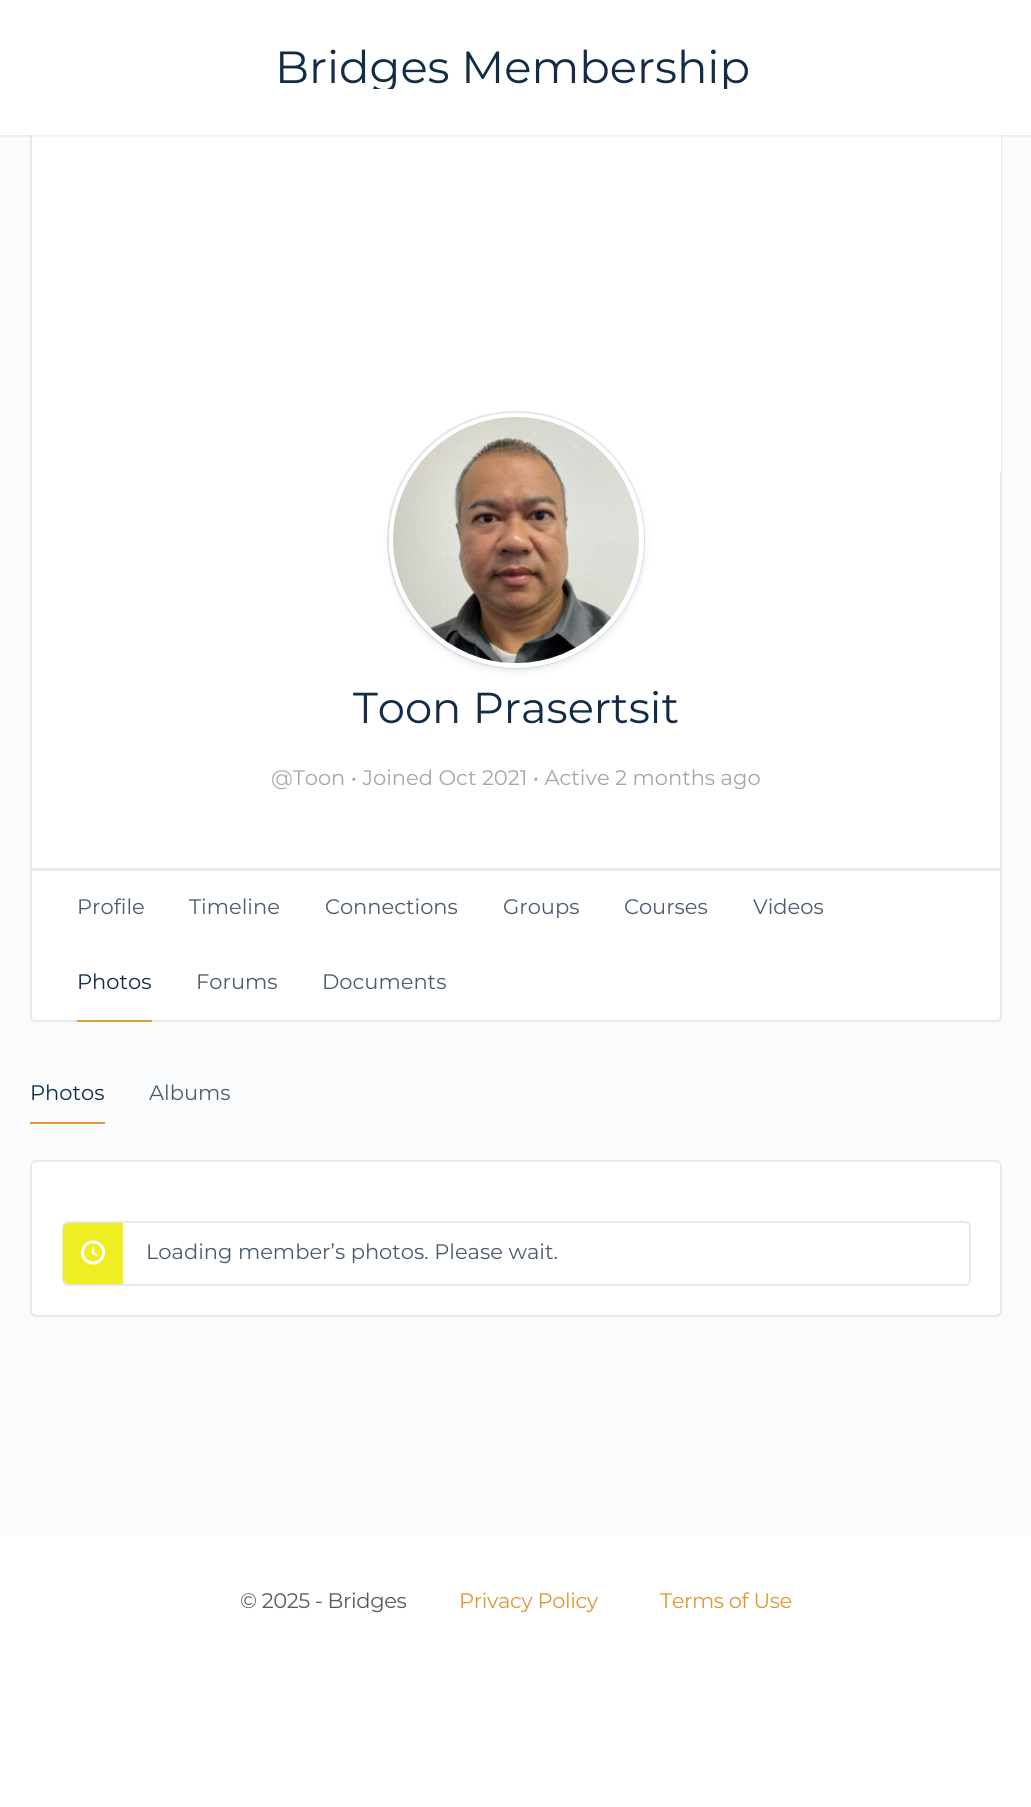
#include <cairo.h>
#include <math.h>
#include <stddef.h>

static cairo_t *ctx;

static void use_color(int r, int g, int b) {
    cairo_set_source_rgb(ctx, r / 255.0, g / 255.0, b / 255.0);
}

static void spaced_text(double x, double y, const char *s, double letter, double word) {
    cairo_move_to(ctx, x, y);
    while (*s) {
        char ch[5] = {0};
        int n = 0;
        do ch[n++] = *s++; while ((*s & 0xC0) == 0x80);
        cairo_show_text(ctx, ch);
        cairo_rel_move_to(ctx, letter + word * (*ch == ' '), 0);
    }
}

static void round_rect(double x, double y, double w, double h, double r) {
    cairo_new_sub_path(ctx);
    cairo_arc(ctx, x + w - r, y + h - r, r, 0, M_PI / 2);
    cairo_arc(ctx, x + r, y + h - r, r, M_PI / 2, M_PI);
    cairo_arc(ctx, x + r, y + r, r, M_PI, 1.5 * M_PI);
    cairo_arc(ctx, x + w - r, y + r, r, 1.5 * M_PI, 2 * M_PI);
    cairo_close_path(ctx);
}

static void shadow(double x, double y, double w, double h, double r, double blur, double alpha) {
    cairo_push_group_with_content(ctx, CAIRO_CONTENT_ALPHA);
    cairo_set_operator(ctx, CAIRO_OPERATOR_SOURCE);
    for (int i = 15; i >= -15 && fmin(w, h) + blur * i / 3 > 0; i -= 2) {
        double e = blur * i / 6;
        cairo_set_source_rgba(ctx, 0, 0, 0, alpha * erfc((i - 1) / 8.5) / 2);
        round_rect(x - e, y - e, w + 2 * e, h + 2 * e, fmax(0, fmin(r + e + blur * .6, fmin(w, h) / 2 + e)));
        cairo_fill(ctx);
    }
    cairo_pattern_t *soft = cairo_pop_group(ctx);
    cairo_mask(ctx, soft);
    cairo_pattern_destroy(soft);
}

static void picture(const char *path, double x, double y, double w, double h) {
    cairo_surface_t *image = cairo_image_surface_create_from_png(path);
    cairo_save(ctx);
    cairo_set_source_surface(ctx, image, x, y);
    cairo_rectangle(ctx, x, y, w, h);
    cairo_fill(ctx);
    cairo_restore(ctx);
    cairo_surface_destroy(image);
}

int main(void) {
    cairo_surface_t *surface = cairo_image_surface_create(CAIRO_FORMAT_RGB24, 1031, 1807);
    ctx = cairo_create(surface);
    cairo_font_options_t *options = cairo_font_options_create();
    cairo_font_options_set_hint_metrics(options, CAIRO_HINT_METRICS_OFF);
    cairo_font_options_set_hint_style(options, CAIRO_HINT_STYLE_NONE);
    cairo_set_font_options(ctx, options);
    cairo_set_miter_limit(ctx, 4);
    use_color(250, 251, 253);
    cairo_paint(ctx);
    use_color(255, 255, 255);
    cairo_rectangle(ctx, 32, 473, 968, 395);
    cairo_fill(ctx);
    cairo_new_path(ctx);
    cairo_move_to(ctx, 31, 870);
    cairo_line_to(ctx, 1001, 870);
    cairo_line_to(ctx, 1001, 1016);
    cairo_curve_to(ctx, 1001, 1019, 999, 1021, 996, 1021);
    cairo_line_to(ctx, 36, 1021);
    cairo_curve_to(ctx, 33, 1021, 31, 1019, 31, 1016);
    cairo_close_path(ctx);
    cairo_fill_preserve(ctx);
    use_color(231, 233, 236);
    cairo_stroke(ctx);
    cairo_rectangle(ctx, 31, 135, 970, 734);
    cairo_stroke(ctx);
    use_color(255, 255, 255);
    cairo_rectangle(ctx, 32, 135, 969, 338);
    cairo_fill(ctx);
    use_color(65, 71, 108);
    shadow(0, 0, 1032, 135, 0, 1, 0.15);
    cairo_set_source_rgba(ctx, 0.545, 0.553, 0.616, 0.05);
    cairo_rectangle(ctx, 0, 135, 1031, 2);
    cairo_fill(ctx);
    use_color(255, 255, 255);
    cairo_rectangle(ctx, 0, 0, 1031, 135);
    cairo_fill(ctx);
    cairo_save(ctx);
    cairo_rectangle(ctx, 66, 48, 893, 41);
    cairo_clip(ctx);
    cairo_select_font_face(ctx, "Montserrat Thin", CAIRO_FONT_SLANT_NORMAL, CAIRO_FONT_WEIGHT_NORMAL);
    cairo_set_font_size(ctx, 45);
    use_color(18, 43, 70);
    cairo_move_to(ctx, 275, 83);
    cairo_show_text(ctx, "Bridges Membership");
    cairo_restore(ctx);
    cairo_new_path(ctx);
    cairo_arc(ctx, 516, 540, 128, 0, 2 * M_PI);
    use_color(231, 233, 236);
    cairo_stroke(ctx);
    use_color(18, 43, 70);
    shadow(389, 416, 255, 255, 127.5, 4, 0.12);
    use_color(255, 255, 255);
    cairo_arc(ctx, 516.5, 540.5, 125, 0, 2 * M_PI);
    cairo_fill_preserve(ctx);
    cairo_set_line_width(ctx, 5);
    cairo_stroke(ctx);
    picture("img1.png", 393, 417, 246, 246);
    cairo_select_font_face(ctx, "Montserrat Thin", CAIRO_FONT_SLANT_NORMAL, CAIRO_FONT_WEIGHT_NORMAL);
    cairo_set_font_size(ctx, 43.25);
    use_color(18, 43, 70);
    cairo_move_to(ctx, 353, 723);
    cairo_show_text(ctx, "Toon Prasertsit");
    cairo_set_font_size(ctx, 21);
    use_color(163, 165, 169);
    cairo_move_to(ctx, 271, 785);
    cairo_show_text(ctx, "@Toon • Joined Oct 2021 • Active 2 months ago");
    use_color(77, 92, 109);
    cairo_move_to(ctx, 77, 914);
    cairo_show_text(ctx, "Profile");
    cairo_move_to(ctx, 189, 914);
    cairo_show_text(ctx, "Timeline");
    cairo_move_to(ctx, 325, 914);
    cairo_show_text(ctx, "Connections");
    cairo_move_to(ctx, 503, 914);
    cairo_show_text(ctx, "Groups");
    cairo_move_to(ctx, 624, 914);
    cairo_show_text(ctx, "Courses");
    cairo_move_to(ctx, 753, 914);
    cairo_show_text(ctx, "Videos");
    use_color(221, 153, 51);
    cairo_rectangle(ctx, 77, 1020, 75, 2);
    cairo_fill(ctx);
    use_color(18, 43, 70);
    cairo_move_to(ctx, 77, 989);
    cairo_show_text(ctx, "Photos");
    use_color(77, 92, 109);
    cairo_move_to(ctx, 196, 989);
    cairo_show_text(ctx, "Forums");
    cairo_move_to(ctx, 322, 989);
    cairo_show_text(ctx, "Documents");
    use_color(221, 153, 51);
    cairo_rectangle(ctx, 30, 1122, 75, 2);
    cairo_fill(ctx);
    use_color(18, 43, 70);
    cairo_move_to(ctx, 30, 1100);
    cairo_show_text(ctx, "Photos");
    use_color(77, 92, 109);
    cairo_move_to(ctx, 149, 1100);
    cairo_show_text(ctx, "Albums");
    use_color(255, 255, 255);
    round_rect(31, 1161, 970, 155, 5);
    cairo_fill_preserve(ctx);
    use_color(231, 233, 236);
    cairo_set_line_width(ctx, 2);
    cairo_stroke(ctx);
    round_rect(63, 1222, 907, 63, 5);
    cairo_stroke(ctx);
    use_color(238, 238, 34);
    cairo_new_path(ctx);
    cairo_move_to(ctx, 69, 1223);
    cairo_line_to(ctx, 123, 1223);
    cairo_line_to(ctx, 123, 1284);
    cairo_line_to(ctx, 69, 1284);
    cairo_curve_to(ctx, 65.5, 1284, 63, 1281.5, 63, 1278);
    cairo_line_to(ctx, 63, 1229);
    cairo_curve_to(ctx, 63, 1225.5, 65.5, 1223, 69, 1223);
    cairo_close_path(ctx);
    cairo_fill(ctx);
    picture("img2.png", 81, 1240, 24, 25);
    use_color(77, 92, 109);
    cairo_move_to(ctx, 146, 1259);
    cairo_show_text(ctx, "Loading member’s photos. Please wait.");
    use_color(255, 255, 255);
    cairo_rectangle(ctx, 0, 1536, 1031, 271);
    cairo_fill(ctx);
    use_color(90, 90, 90);
    spaced_text(240, 1608, "© 2025 - Bridges", -0.4, 0);
    use_color(221, 153, 51);
    spaced_text(459, 1608, "Privacy Policy", -0.4, 0);
    spaced_text(660, 1608, "Terms of Use", -0.4, 0);
    cairo_surface_write_to_png(surface, "result.png");
    cairo_font_options_destroy(options);
    cairo_destroy(ctx);
    cairo_surface_destroy(surface);
    return 0;
}
